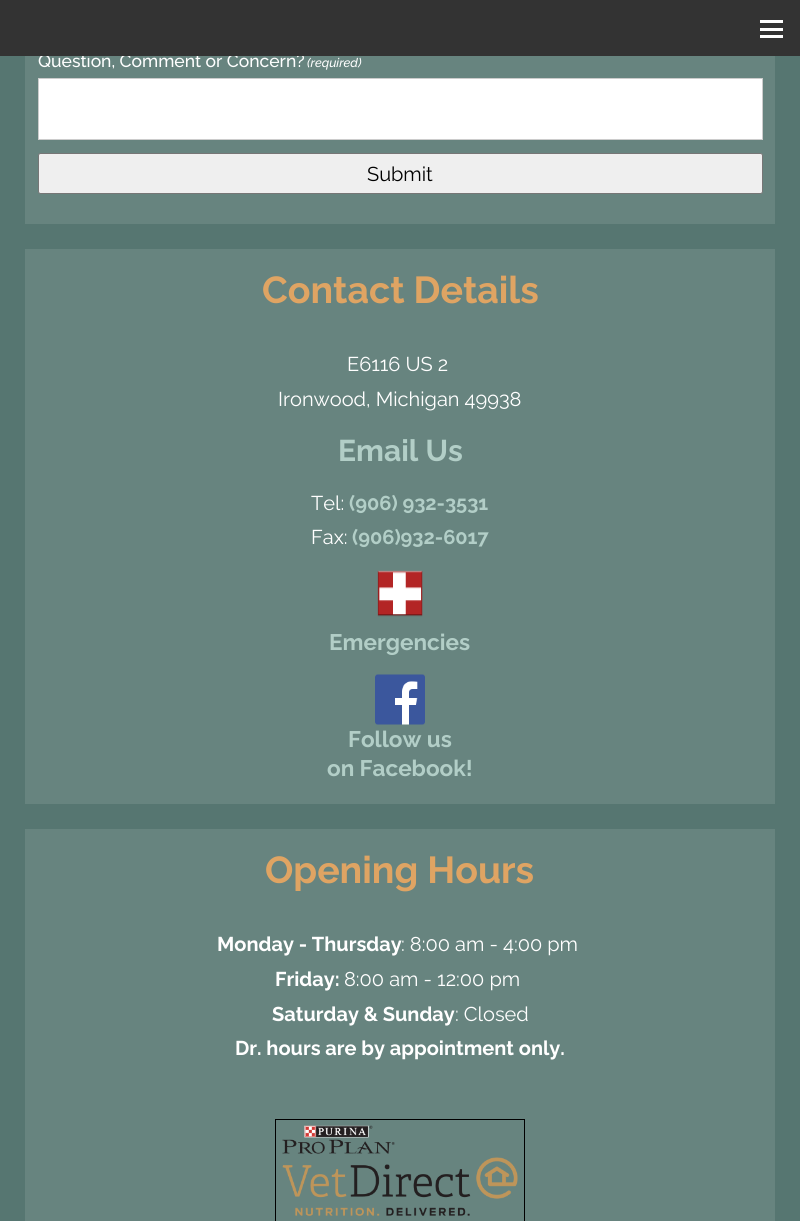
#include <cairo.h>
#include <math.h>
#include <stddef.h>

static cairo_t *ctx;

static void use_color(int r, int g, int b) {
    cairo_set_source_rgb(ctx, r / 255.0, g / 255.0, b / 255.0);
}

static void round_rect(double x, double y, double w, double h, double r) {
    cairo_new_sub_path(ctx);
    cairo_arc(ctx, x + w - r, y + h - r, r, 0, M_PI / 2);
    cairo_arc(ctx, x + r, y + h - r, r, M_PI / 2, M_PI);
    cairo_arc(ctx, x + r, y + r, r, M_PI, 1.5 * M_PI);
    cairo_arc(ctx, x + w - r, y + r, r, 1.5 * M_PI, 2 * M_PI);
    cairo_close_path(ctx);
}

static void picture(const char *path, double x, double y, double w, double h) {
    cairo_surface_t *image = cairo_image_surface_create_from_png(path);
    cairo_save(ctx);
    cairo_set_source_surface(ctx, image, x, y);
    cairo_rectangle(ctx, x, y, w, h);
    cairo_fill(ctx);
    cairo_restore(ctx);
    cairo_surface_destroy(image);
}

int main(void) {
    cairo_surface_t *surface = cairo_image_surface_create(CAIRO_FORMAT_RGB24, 800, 1221);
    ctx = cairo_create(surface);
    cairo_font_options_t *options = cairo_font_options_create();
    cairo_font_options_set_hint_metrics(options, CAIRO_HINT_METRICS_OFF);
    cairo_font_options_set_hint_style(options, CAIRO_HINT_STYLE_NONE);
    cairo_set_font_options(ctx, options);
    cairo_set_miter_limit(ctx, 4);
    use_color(86, 118, 113);
    cairo_paint(ctx);
    use_color(103, 132, 127);
    cairo_rectangle(ctx, 25, 56, 750, 168);
    cairo_fill(ctx);
    cairo_select_font_face(ctx, "Raleway Medium", CAIRO_FONT_SLANT_NORMAL, CAIRO_FONT_WEIGHT_NORMAL);
    cairo_set_font_size(ctx, 17.5);
    use_color(255, 255, 255);
    cairo_move_to(ctx, 38, 67);
    cairo_show_text(ctx, "Question, Comment or Concern?");
    use_color(51, 51, 51);
    cairo_rectangle(ctx, 0, 0, 800, 56);
    cairo_fill(ctx);
    use_color(255, 255, 255);
    cairo_rectangle(ctx, 760, 35, 23, 3);
    cairo_fill(ctx);
    cairo_rectangle(ctx, 760, 28, 23, 3);
    cairo_fill(ctx);
    cairo_rectangle(ctx, 760, 20, 23, 3);
    cairo_fill(ctx);
    cairo_select_font_face(ctx, "Raleway Medium", CAIRO_FONT_SLANT_ITALIC, CAIRO_FONT_WEIGHT_NORMAL);
    cairo_set_font_size(ctx, 12.5);
    cairo_move_to(ctx, 307, 67);
    cairo_show_text(ctx, "(required)");
    cairo_rectangle(ctx, 38.5, 78.5, 724, 61);
    cairo_fill_preserve(ctx);
    use_color(204, 204, 204);
    cairo_set_line_width(ctx, 1);
    cairo_stroke(ctx);
    use_color(239, 239, 239);
    round_rect(38.5, 153.5, 724, 40, 2);
    cairo_fill_preserve(ctx);
    use_color(118, 118, 118);
    cairo_stroke(ctx);
    cairo_select_font_face(ctx, "Raleway", CAIRO_FONT_SLANT_NORMAL, CAIRO_FONT_WEIGHT_NORMAL);
    cairo_set_font_size(ctx, 20);
    use_color(0, 0, 0);
    cairo_move_to(ctx, 367, 181);
    cairo_show_text(ctx, "Submit");
    use_color(103, 132, 127);
    cairo_rectangle(ctx, 25, 249, 750, 555);
    cairo_fill(ctx);
    cairo_select_font_face(ctx, "Raleway", CAIRO_FONT_SLANT_NORMAL, CAIRO_FONT_WEIGHT_BOLD);
    cairo_set_font_size(ctx, 37.5);
    use_color(223, 164, 99);
    cairo_move_to(ctx, 262, 303);
    cairo_show_text(ctx, "Contact Details");
    cairo_select_font_face(ctx, "Raleway", CAIRO_FONT_SLANT_NORMAL, CAIRO_FONT_WEIGHT_NORMAL);
    cairo_set_font_size(ctx, 20);
    use_color(255, 255, 255);
    cairo_move_to(ctx, 347, 371);
    cairo_show_text(ctx, "E6116 US 2");
    cairo_move_to(ctx, 278, 406);
    cairo_show_text(ctx, "Ironwood, Michigan 49938");
    cairo_select_font_face(ctx, "Raleway", CAIRO_FONT_SLANT_NORMAL, CAIRO_FONT_WEIGHT_BOLD);
    cairo_set_font_size(ctx, 30);
    use_color(178, 206, 199);
    cairo_move_to(ctx, 338, 461);
    cairo_show_text(ctx, "Email Us");
    cairo_select_font_face(ctx, "Raleway", CAIRO_FONT_SLANT_NORMAL, CAIRO_FONT_WEIGHT_NORMAL);
    cairo_set_font_size(ctx, 20);
    use_color(255, 255, 255);
    cairo_move_to(ctx, 311, 510);
    cairo_show_text(ctx, "Tel:");
    cairo_select_font_face(ctx, "Raleway", CAIRO_FONT_SLANT_NORMAL, CAIRO_FONT_WEIGHT_BOLD);
    use_color(178, 206, 199);
    cairo_move_to(ctx, 349, 510);
    cairo_show_text(ctx, "(906) 932-3531");
    cairo_select_font_face(ctx, "Raleway", CAIRO_FONT_SLANT_NORMAL, CAIRO_FONT_WEIGHT_NORMAL);
    use_color(255, 255, 255);
    cairo_move_to(ctx, 311, 544);
    cairo_show_text(ctx, "Fax:");
    cairo_select_font_face(ctx, "Raleway", CAIRO_FONT_SLANT_NORMAL, CAIRO_FONT_WEIGHT_BOLD);
    use_color(178, 206, 199);
    cairo_move_to(ctx, 352, 544);
    cairo_show_text(ctx, "(906)932-6017");
    picture("img1.png", 377, 570, 46, 47);
    cairo_set_font_size(ctx, 22.5);
    cairo_move_to(ctx, 329, 650);
    cairo_show_text(ctx, "Emergencies");
    picture("img2.png", 375, 674, 50, 51);
    cairo_move_to(ctx, 348, 747);
    cairo_show_text(ctx, "Follow us");
    cairo_move_to(ctx, 327, 776);
    cairo_show_text(ctx, "on Facebook!");
    use_color(103, 132, 127);
    cairo_rectangle(ctx, 25, 829, 750, 392);
    cairo_fill(ctx);
    cairo_set_font_size(ctx, 37.5);
    use_color(223, 164, 99);
    cairo_move_to(ctx, 265, 883);
    cairo_show_text(ctx, "Opening Hours");
    cairo_set_font_size(ctx, 20);
    use_color(255, 255, 255);
    cairo_move_to(ctx, 217, 951);
    cairo_show_text(ctx, "Monday - Thursday");
    cairo_select_font_face(ctx, "Raleway", CAIRO_FONT_SLANT_NORMAL, CAIRO_FONT_WEIGHT_NORMAL);
    cairo_move_to(ctx, 401, 951);
    cairo_show_text(ctx, ": 8:00 am - 4:00 pm");
    cairo_select_font_face(ctx, "Raleway", CAIRO_FONT_SLANT_NORMAL, CAIRO_FONT_WEIGHT_BOLD);
    cairo_move_to(ctx, 275, 986);
    cairo_show_text(ctx, "Friday:");
    cairo_select_font_face(ctx, "Raleway", CAIRO_FONT_SLANT_NORMAL, CAIRO_FONT_WEIGHT_NORMAL);
    cairo_move_to(ctx, 344, 986);
    cairo_show_text(ctx, "8:00 am - 12:00 pm");
    cairo_select_font_face(ctx, "Raleway", CAIRO_FONT_SLANT_NORMAL, CAIRO_FONT_WEIGHT_BOLD);
    cairo_move_to(ctx, 272, 1021);
    cairo_show_text(ctx, "Saturday & Sunday");
    cairo_select_font_face(ctx, "Raleway", CAIRO_FONT_SLANT_NORMAL, CAIRO_FONT_WEIGHT_NORMAL);
    cairo_move_to(ctx, 455, 1021);
    cairo_show_text(ctx, ": Closed");
    cairo_select_font_face(ctx, "Raleway", CAIRO_FONT_SLANT_NORMAL, CAIRO_FONT_WEIGHT_BOLD);
    cairo_move_to(ctx, 235, 1055);
    cairo_show_text(ctx, "Dr. hours are by appointment only.");
    cairo_rectangle(ctx, 275.5, 1119.5, 249, 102);
    use_color(0, 0, 0);
    cairo_stroke(ctx);
    picture("img3.png", 282, 1125, 236, 91);
    cairo_surface_write_to_png(surface, "result.png");
    cairo_font_options_destroy(options);
    cairo_destroy(ctx);
    cairo_surface_destroy(surface);
    return 0;
}
